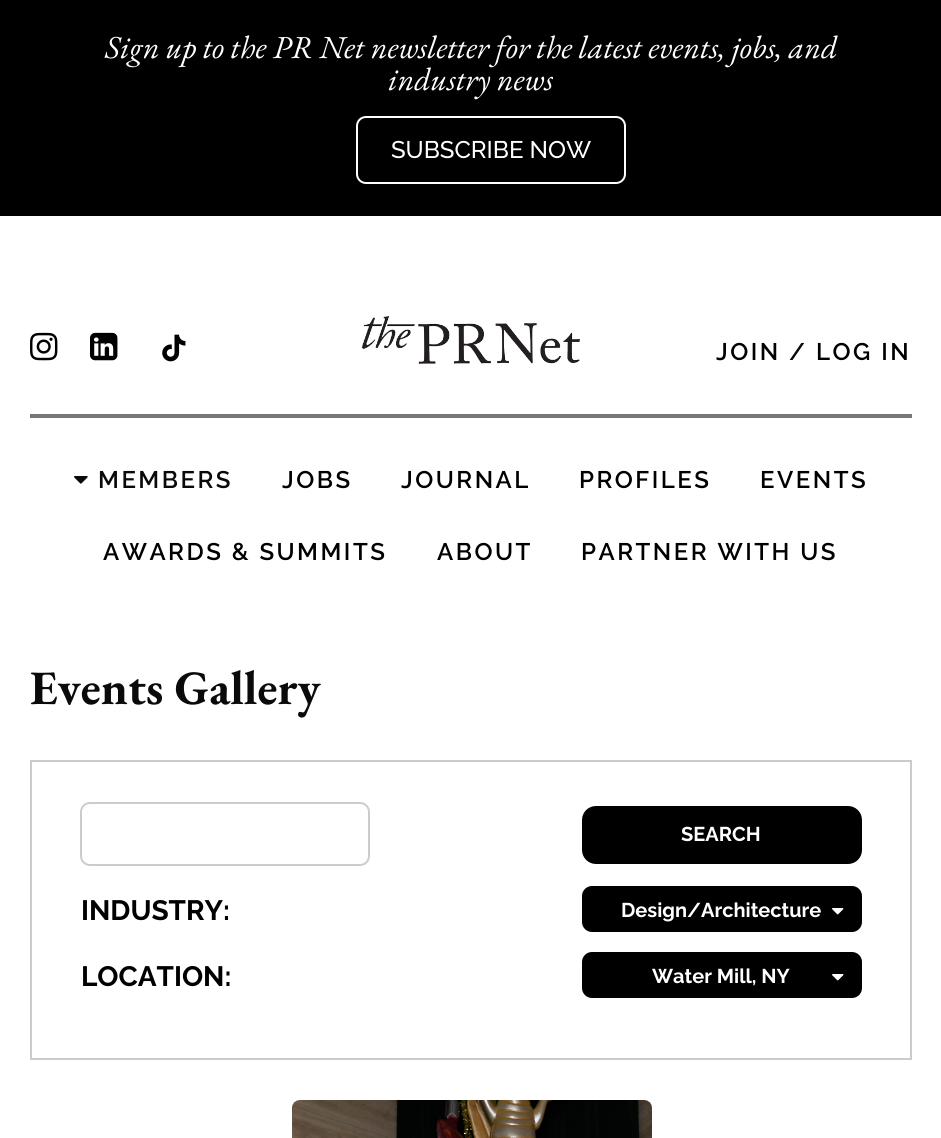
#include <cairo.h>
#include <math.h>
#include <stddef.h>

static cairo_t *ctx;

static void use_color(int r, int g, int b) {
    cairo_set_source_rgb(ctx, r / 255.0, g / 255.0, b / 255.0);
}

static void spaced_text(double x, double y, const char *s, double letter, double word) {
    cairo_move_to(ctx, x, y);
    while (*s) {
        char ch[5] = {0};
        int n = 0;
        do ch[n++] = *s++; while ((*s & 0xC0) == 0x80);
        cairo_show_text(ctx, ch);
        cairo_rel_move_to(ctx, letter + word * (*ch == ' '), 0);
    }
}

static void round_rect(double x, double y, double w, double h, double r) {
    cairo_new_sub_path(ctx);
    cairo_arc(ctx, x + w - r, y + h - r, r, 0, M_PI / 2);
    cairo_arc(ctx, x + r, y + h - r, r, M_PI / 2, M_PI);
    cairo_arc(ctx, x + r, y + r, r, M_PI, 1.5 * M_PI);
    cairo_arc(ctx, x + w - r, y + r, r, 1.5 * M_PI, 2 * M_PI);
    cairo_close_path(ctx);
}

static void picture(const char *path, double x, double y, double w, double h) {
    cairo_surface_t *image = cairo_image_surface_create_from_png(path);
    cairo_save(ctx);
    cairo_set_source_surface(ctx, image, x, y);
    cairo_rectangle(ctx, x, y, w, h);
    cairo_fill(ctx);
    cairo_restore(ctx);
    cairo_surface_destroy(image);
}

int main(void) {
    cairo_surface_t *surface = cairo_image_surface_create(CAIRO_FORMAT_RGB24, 941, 1138);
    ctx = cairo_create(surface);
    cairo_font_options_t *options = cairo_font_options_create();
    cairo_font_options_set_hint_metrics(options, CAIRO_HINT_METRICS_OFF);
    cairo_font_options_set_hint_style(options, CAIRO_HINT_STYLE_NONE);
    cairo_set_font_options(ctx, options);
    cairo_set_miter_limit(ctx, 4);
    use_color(255, 255, 255);
    cairo_paint(ctx);
    use_color(0, 0, 0);
    cairo_rectangle(ctx, 0, 0, 941, 216);
    cairo_fill(ctx);
    cairo_select_font_face(ctx, "EB Garamond", CAIRO_FONT_SLANT_ITALIC, CAIRO_FONT_WEIGHT_NORMAL);
    cairo_set_font_size(ctx, 32);
    use_color(255, 255, 255);
    cairo_move_to(ctx, 105, 58);
    cairo_show_text(ctx, "Sign up to the PR Net newsletter for the latest events, jobs, and");
    cairo_move_to(ctx, 388, 90);
    cairo_show_text(ctx, "industry news");
    round_rect(357, 117, 268, 66, 9);
    cairo_stroke(ctx);
    cairo_select_font_face(ctx, "Raleway Medium", CAIRO_FONT_SLANT_NORMAL, CAIRO_FONT_WEIGHT_NORMAL);
    cairo_set_font_size(ctx, 24);
    cairo_move_to(ctx, 391, 158);
    cairo_show_text(ctx, "SUBSCRIBE NOW");
    picture("img1.png", 30, 332, 28, 29);
    picture("img2.png", 90, 332, 28, 29);
    picture("img3.png", 162, 334, 24, 28);
    picture("img4.png", 362, 316, 218, 48);
    cairo_select_font_face(ctx, "Raleway SemiBold", CAIRO_FONT_SLANT_NORMAL, CAIRO_FONT_WEIGHT_NORMAL);
    use_color(0, 0, 0);
    spaced_text(716, 360, "JOIN", 2.5, 0);
    use_color(10, 10, 10);
    spaced_text(789, 360, "/", 2.5, 0);
    use_color(0, 0, 0);
    spaced_text(816, 360, "LOG IN", 2.5, 0);
    use_color(119, 119, 119);
    cairo_rectangle(ctx, 30, 414, 882, 4);
    cairo_fill(ctx);
    picture("img5.png", 74, 476, 14, 8);
    use_color(10, 10, 10);
    spaced_text(98, 488, "MEMBERS", 2.5, 0);
    use_color(0, 0, 0);
    spaced_text(282, 488, "JOBS", 2.5, 0);
    spaced_text(401, 488, "JOURNAL", 2.5, 0);
    spaced_text(579, 488, "PROFILES", 2.5, 0);
    spaced_text(760, 488, "EVENTS", 2.5, 0);
    spaced_text(103, 560, "AWARDS & SUMMITS", 2.5, 0);
    spaced_text(437, 560, "ABOUT", 2.5, 0);
    spaced_text(581, 560, "PARTNER WITH US", 2.5, 0);
    cairo_select_font_face(ctx, "EB Garamond", CAIRO_FONT_SLANT_NORMAL, CAIRO_FONT_WEIGHT_BOLD);
    cairo_set_font_size(ctx, 48);
    use_color(10, 10, 10);
    cairo_move_to(ctx, 30, 704);
    cairo_show_text(ctx, "Events Gallery");
    cairo_rectangle(ctx, 31, 761, 880, 298);
    use_color(203, 203, 203);
    cairo_stroke(ctx);
    round_rect(81, 803, 288, 62, 9);
    use_color(204, 204, 204);
    cairo_stroke(ctx);
    use_color(0, 0, 0);
    round_rect(583, 807, 278, 56, 13);
    cairo_fill_preserve(ctx);
    cairo_stroke(ctx);
    cairo_select_font_face(ctx, "Raleway", CAIRO_FONT_SLANT_NORMAL, CAIRO_FONT_WEIGHT_BOLD);
    cairo_set_font_size(ctx, 20);
    use_color(255, 255, 255);
    cairo_move_to(ctx, 681, 841);
    cairo_show_text(ctx, "SEARCH");
    cairo_set_font_size(ctx, 28);
    use_color(0, 0, 0);
    cairo_move_to(ctx, 81, 920);
    cairo_show_text(ctx, "INDUSTRY:");
    round_rect(583, 887, 278, 44, 9);
    cairo_fill_preserve(ctx);
    cairo_stroke(ctx);
    cairo_set_font_size(ctx, 20);
    use_color(255, 255, 255);
    cairo_move_to(ctx, 621, 917);
    cairo_show_text(ctx, "Design/Architecture");
    picture("img6.png", 832, 908, 12, 7);
    cairo_set_font_size(ctx, 28);
    use_color(0, 0, 0);
    cairo_move_to(ctx, 81, 986);
    cairo_show_text(ctx, "LOCATION:");
    round_rect(583, 953, 278, 44, 9);
    cairo_fill_preserve(ctx);
    cairo_stroke(ctx);
    cairo_set_font_size(ctx, 20);
    use_color(255, 255, 255);
    cairo_move_to(ctx, 652, 983);
    cairo_show_text(ctx, "Water Mill, NY");
    picture("img6.png", 832, 974, 12, 7);
    picture("img7.png", 292, 1100, 360, 38);
    cairo_surface_write_to_png(surface, "result.png");
    cairo_font_options_destroy(options);
    cairo_destroy(ctx);
    cairo_surface_destroy(surface);
    return 0;
}
